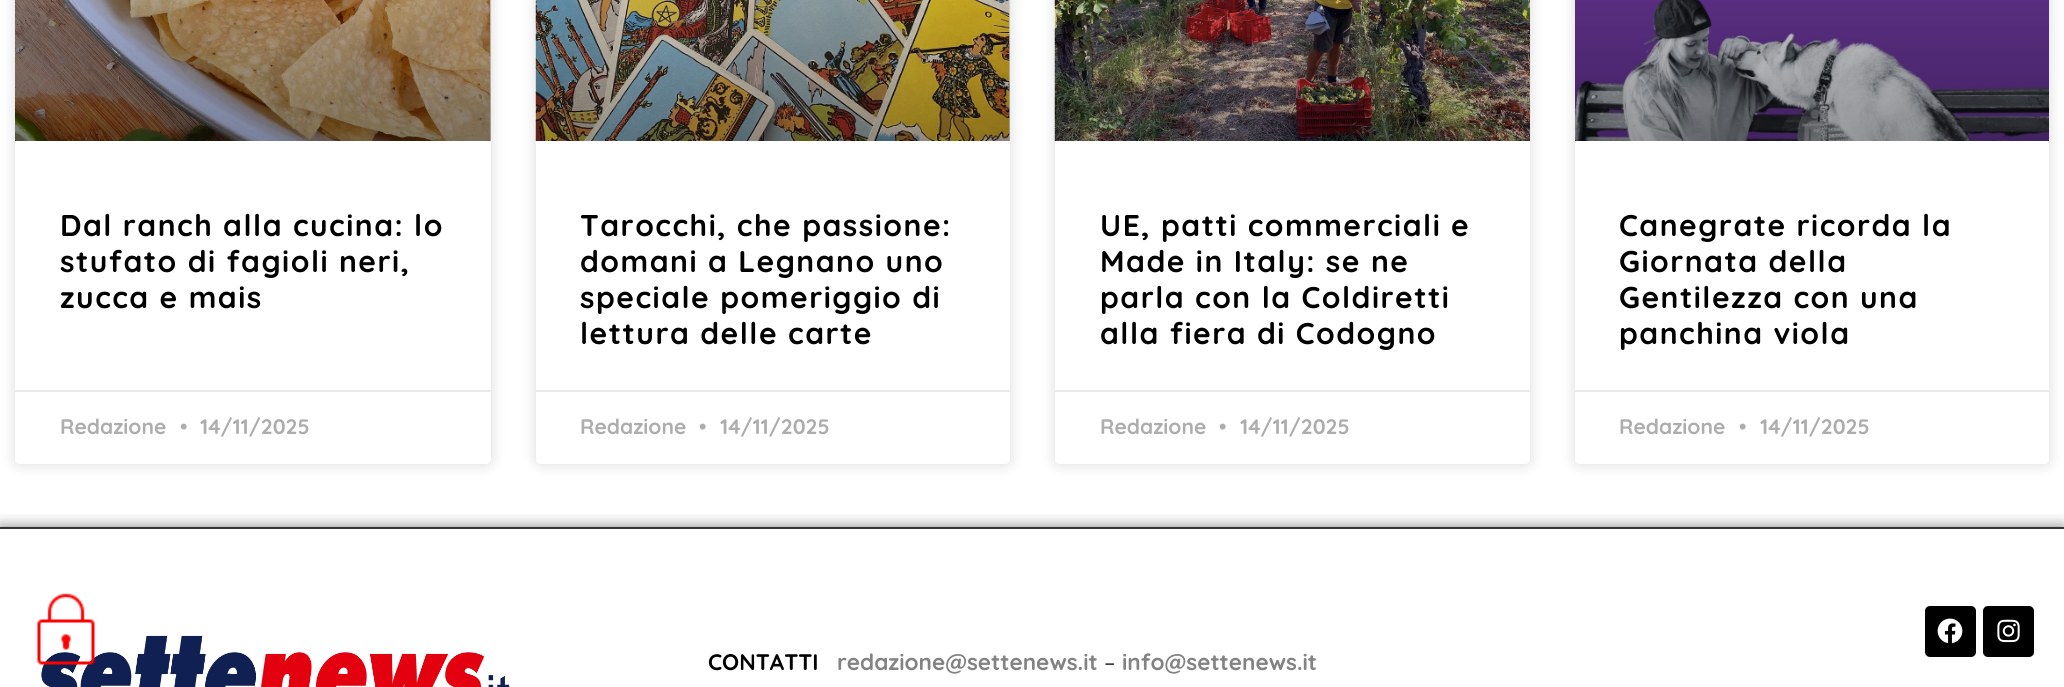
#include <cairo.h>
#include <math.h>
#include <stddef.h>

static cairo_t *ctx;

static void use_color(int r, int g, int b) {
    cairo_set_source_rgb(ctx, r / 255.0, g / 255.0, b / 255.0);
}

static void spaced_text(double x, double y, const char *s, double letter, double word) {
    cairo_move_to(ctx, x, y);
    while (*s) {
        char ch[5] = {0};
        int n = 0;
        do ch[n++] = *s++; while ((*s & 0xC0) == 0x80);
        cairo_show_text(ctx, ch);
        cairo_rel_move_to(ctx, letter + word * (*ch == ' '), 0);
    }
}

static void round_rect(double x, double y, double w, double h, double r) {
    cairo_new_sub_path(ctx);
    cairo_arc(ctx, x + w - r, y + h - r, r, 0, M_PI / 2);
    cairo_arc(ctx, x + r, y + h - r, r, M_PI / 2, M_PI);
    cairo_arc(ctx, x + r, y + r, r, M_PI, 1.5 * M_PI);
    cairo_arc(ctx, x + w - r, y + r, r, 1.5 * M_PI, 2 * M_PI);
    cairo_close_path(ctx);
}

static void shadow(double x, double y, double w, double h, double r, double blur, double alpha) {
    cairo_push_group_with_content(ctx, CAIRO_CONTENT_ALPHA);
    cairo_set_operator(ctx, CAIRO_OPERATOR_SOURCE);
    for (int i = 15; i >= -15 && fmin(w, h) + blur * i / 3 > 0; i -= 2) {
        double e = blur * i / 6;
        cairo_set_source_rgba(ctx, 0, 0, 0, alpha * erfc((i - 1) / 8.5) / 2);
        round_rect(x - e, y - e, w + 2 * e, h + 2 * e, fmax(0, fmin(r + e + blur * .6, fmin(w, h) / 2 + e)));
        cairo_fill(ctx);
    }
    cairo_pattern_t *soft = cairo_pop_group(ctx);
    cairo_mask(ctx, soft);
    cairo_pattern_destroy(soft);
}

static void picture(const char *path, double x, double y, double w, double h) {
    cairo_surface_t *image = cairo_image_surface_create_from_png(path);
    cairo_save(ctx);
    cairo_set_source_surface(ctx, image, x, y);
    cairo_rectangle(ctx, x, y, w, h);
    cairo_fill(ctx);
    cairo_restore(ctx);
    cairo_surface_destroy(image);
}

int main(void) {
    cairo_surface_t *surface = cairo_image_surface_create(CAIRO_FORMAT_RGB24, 2064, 687);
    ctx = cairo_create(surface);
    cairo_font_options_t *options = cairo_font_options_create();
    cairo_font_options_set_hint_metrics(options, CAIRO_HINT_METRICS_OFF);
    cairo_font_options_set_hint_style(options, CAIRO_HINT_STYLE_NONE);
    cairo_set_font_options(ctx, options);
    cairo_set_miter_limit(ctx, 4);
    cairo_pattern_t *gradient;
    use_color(255, 255, 255);
    cairo_paint(ctx);
    use_color(0, 0, 0);
    shadow(15, -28, 476, 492, 5, 7.5, 0.15);
    use_color(255, 255, 255);
    round_rect(15, -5, 476, 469, 5);
    cairo_fill(ctx);
    picture("img1.png", 15, 0, 476, 141);
    gradient = cairo_pattern_create_linear(253, 141, 253, -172);
    cairo_pattern_add_color_stop_rgba(gradient, 0, 0, 0, 0, 0.35);
    cairo_pattern_add_color_stop_rgba(gradient, 0.75, 0, 0, 0, 0);
    cairo_set_source(ctx, gradient);
    cairo_pattern_destroy(gradient);
    cairo_rectangle(ctx, 15, 0, 476, 141);
    cairo_fill(ctx);
    cairo_select_font_face(ctx, "Quicksand", CAIRO_FONT_SLANT_NORMAL, CAIRO_FONT_WEIGHT_BOLD);
    cairo_set_font_size(ctx, 30);
    use_color(0, 0, 0);
    spaced_text(60, 236, "Dal ranch alla cucina: lo", 1.5, 0);
    spaced_text(60, 272, "stufato di fagioli neri,", 1.5, 0);
    spaced_text(60, 308, "zucca e mais", 1.5, 0);
    use_color(234, 234, 234);
    cairo_rectangle(ctx, 15, 390, 476, 2);
    cairo_fill(ctx);
    cairo_set_font_size(ctx, 21);
    use_color(173, 173, 173);
    cairo_move_to(ctx, 60, 434);
    cairo_show_text(ctx, "Redazione");
    cairo_move_to(ctx, 180, 434);
    cairo_show_text(ctx, "•");
    cairo_move_to(ctx, 200, 434);
    cairo_show_text(ctx, "14/11/2025");
    use_color(0, 0, 0);
    shadow(536, -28, 474, 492, 5, 7.5, 0.15);
    use_color(255, 255, 255);
    round_rect(536, -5, 474, 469, 5);
    cairo_fill(ctx);
    picture("img2.png", 535, 0, 475, 141);
    gradient = cairo_pattern_create_linear(773, 141, 773, -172);
    cairo_pattern_add_color_stop_rgba(gradient, 0, 0, 0, 0, 0.35);
    cairo_pattern_add_color_stop_rgba(gradient, 0.75, 0, 0, 0, 0);
    cairo_set_source(ctx, gradient);
    cairo_pattern_destroy(gradient);
    cairo_rectangle(ctx, 536, 0, 474, 141);
    cairo_fill(ctx);
    cairo_set_font_size(ctx, 30);
    use_color(0, 0, 0);
    spaced_text(580, 236, "Tarocchi, che passione:", 1.5, 0);
    spaced_text(580, 272, "domani a Legnano uno", 1.5, 0);
    spaced_text(580, 308, "speciale pomeriggio di", 1.5, 0);
    spaced_text(580, 344, "lettura delle carte", 1.5, 0);
    use_color(234, 234, 234);
    cairo_rectangle(ctx, 536, 390, 474, 2);
    cairo_fill(ctx);
    cairo_set_font_size(ctx, 21);
    use_color(173, 173, 173);
    cairo_move_to(ctx, 580, 434);
    cairo_show_text(ctx, "Redazione");
    cairo_move_to(ctx, 699, 434);
    cairo_show_text(ctx, "•");
    cairo_move_to(ctx, 720, 434);
    cairo_show_text(ctx, "14/11/2025");
    use_color(0, 0, 0);
    shadow(1055, -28, 475, 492, 5, 7.5, 0.15);
    use_color(255, 255, 255);
    round_rect(1055, -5, 475, 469, 5);
    cairo_fill(ctx);
    picture("img3.png", 1054, 0, 476, 141);
    cairo_set_font_size(ctx, 30);
    use_color(0, 0, 0);
    spaced_text(1100, 236, "UE, patti commerciali e", 1.5, 0);
    spaced_text(1100, 272, "Made in Italy: se ne", 1.5, 0);
    spaced_text(1100, 308, "parla con la Coldiretti", 1.5, 0);
    spaced_text(1100, 344, "alla fiera di Codogno", 1.5, 0);
    use_color(234, 234, 234);
    cairo_rectangle(ctx, 1055, 390, 475, 2);
    cairo_fill(ctx);
    cairo_set_font_size(ctx, 21);
    use_color(173, 173, 173);
    cairo_move_to(ctx, 1100, 434);
    cairo_show_text(ctx, "Redazione");
    cairo_move_to(ctx, 1219, 434);
    cairo_show_text(ctx, "•");
    cairo_move_to(ctx, 1240, 434);
    cairo_show_text(ctx, "14/11/2025");
    use_color(0, 0, 0);
    shadow(1575, -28, 474, 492, 5, 7.5, 0.15);
    use_color(255, 255, 255);
    round_rect(1575, -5, 474, 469, 5);
    cairo_fill(ctx);
    picture("img4.png", 1575, 0, 474, 141);
    cairo_set_font_size(ctx, 30);
    use_color(0, 0, 0);
    spaced_text(1619, 236, "Canegrate ricorda la", 1.5, 0);
    spaced_text(1619, 272, "Giornata della", 1.5, 0);
    spaced_text(1619, 308, "Gentilezza con una", 1.5, 0);
    spaced_text(1619, 344, "panchina viola", 1.5, 0);
    use_color(234, 234, 234);
    cairo_rectangle(ctx, 1575, 390, 474, 2);
    cairo_fill(ctx);
    cairo_set_font_size(ctx, 21);
    use_color(173, 173, 173);
    cairo_move_to(ctx, 1619, 434);
    cairo_show_text(ctx, "Redazione");
    cairo_move_to(ctx, 1739, 434);
    cairo_show_text(ctx, "•");
    cairo_move_to(ctx, 1760, 434);
    cairo_show_text(ctx, "14/11/2025");
    cairo_save(ctx);
    cairo_rectangle(ctx, 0, 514, 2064, 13);
    cairo_clip(ctx);
    use_color(0, 0, 0);
    shadow(0, 527, 2064, 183, 0, 7.5, 0.5);
    cairo_restore(ctx);
    picture("img6.png", 41, 635, 469, 52);
    picture("img5.png", 37, 593, 58, 72);
    use_color(51, 51, 51);
    cairo_rectangle(ctx, 0, 527, 2064, 2);
    cairo_fill(ctx);
    cairo_set_font_size(ctx, 22.5);
    use_color(0, 0, 0);
    cairo_move_to(ctx, 708, 670);
    cairo_show_text(ctx, "CONTATTI");
    use_color(131, 131, 131);
    cairo_move_to(ctx, 837, 670);
    cairo_show_text(ctx, "redazione@settenews.it");
    cairo_select_font_face(ctx, "Quicksand", CAIRO_FONT_SLANT_NORMAL, CAIRO_FONT_WEIGHT_NORMAL);
    use_color(0, 0, 0);
    cairo_move_to(ctx, 1104, 670);
    cairo_show_text(ctx, "–");
    cairo_select_font_face(ctx, "Quicksand", CAIRO_FONT_SLANT_NORMAL, CAIRO_FONT_WEIGHT_BOLD);
    use_color(131, 131, 131);
    cairo_move_to(ctx, 1122, 670);
    cairo_show_text(ctx, "info@settenews.it");
    use_color(0, 0, 0);
    round_rect(1925, 606, 51, 51, 5);
    cairo_fill(ctx);
    picture("img7.png", 1937, 618, 26, 26);
    round_rect(1983, 606, 51, 51, 5);
    cairo_fill(ctx);
    picture("img8.png", 1997, 619, 23, 24);
    cairo_surface_write_to_png(surface, "result.png");
    cairo_font_options_destroy(options);
    cairo_destroy(ctx);
    cairo_surface_destroy(surface);
    return 0;
}
